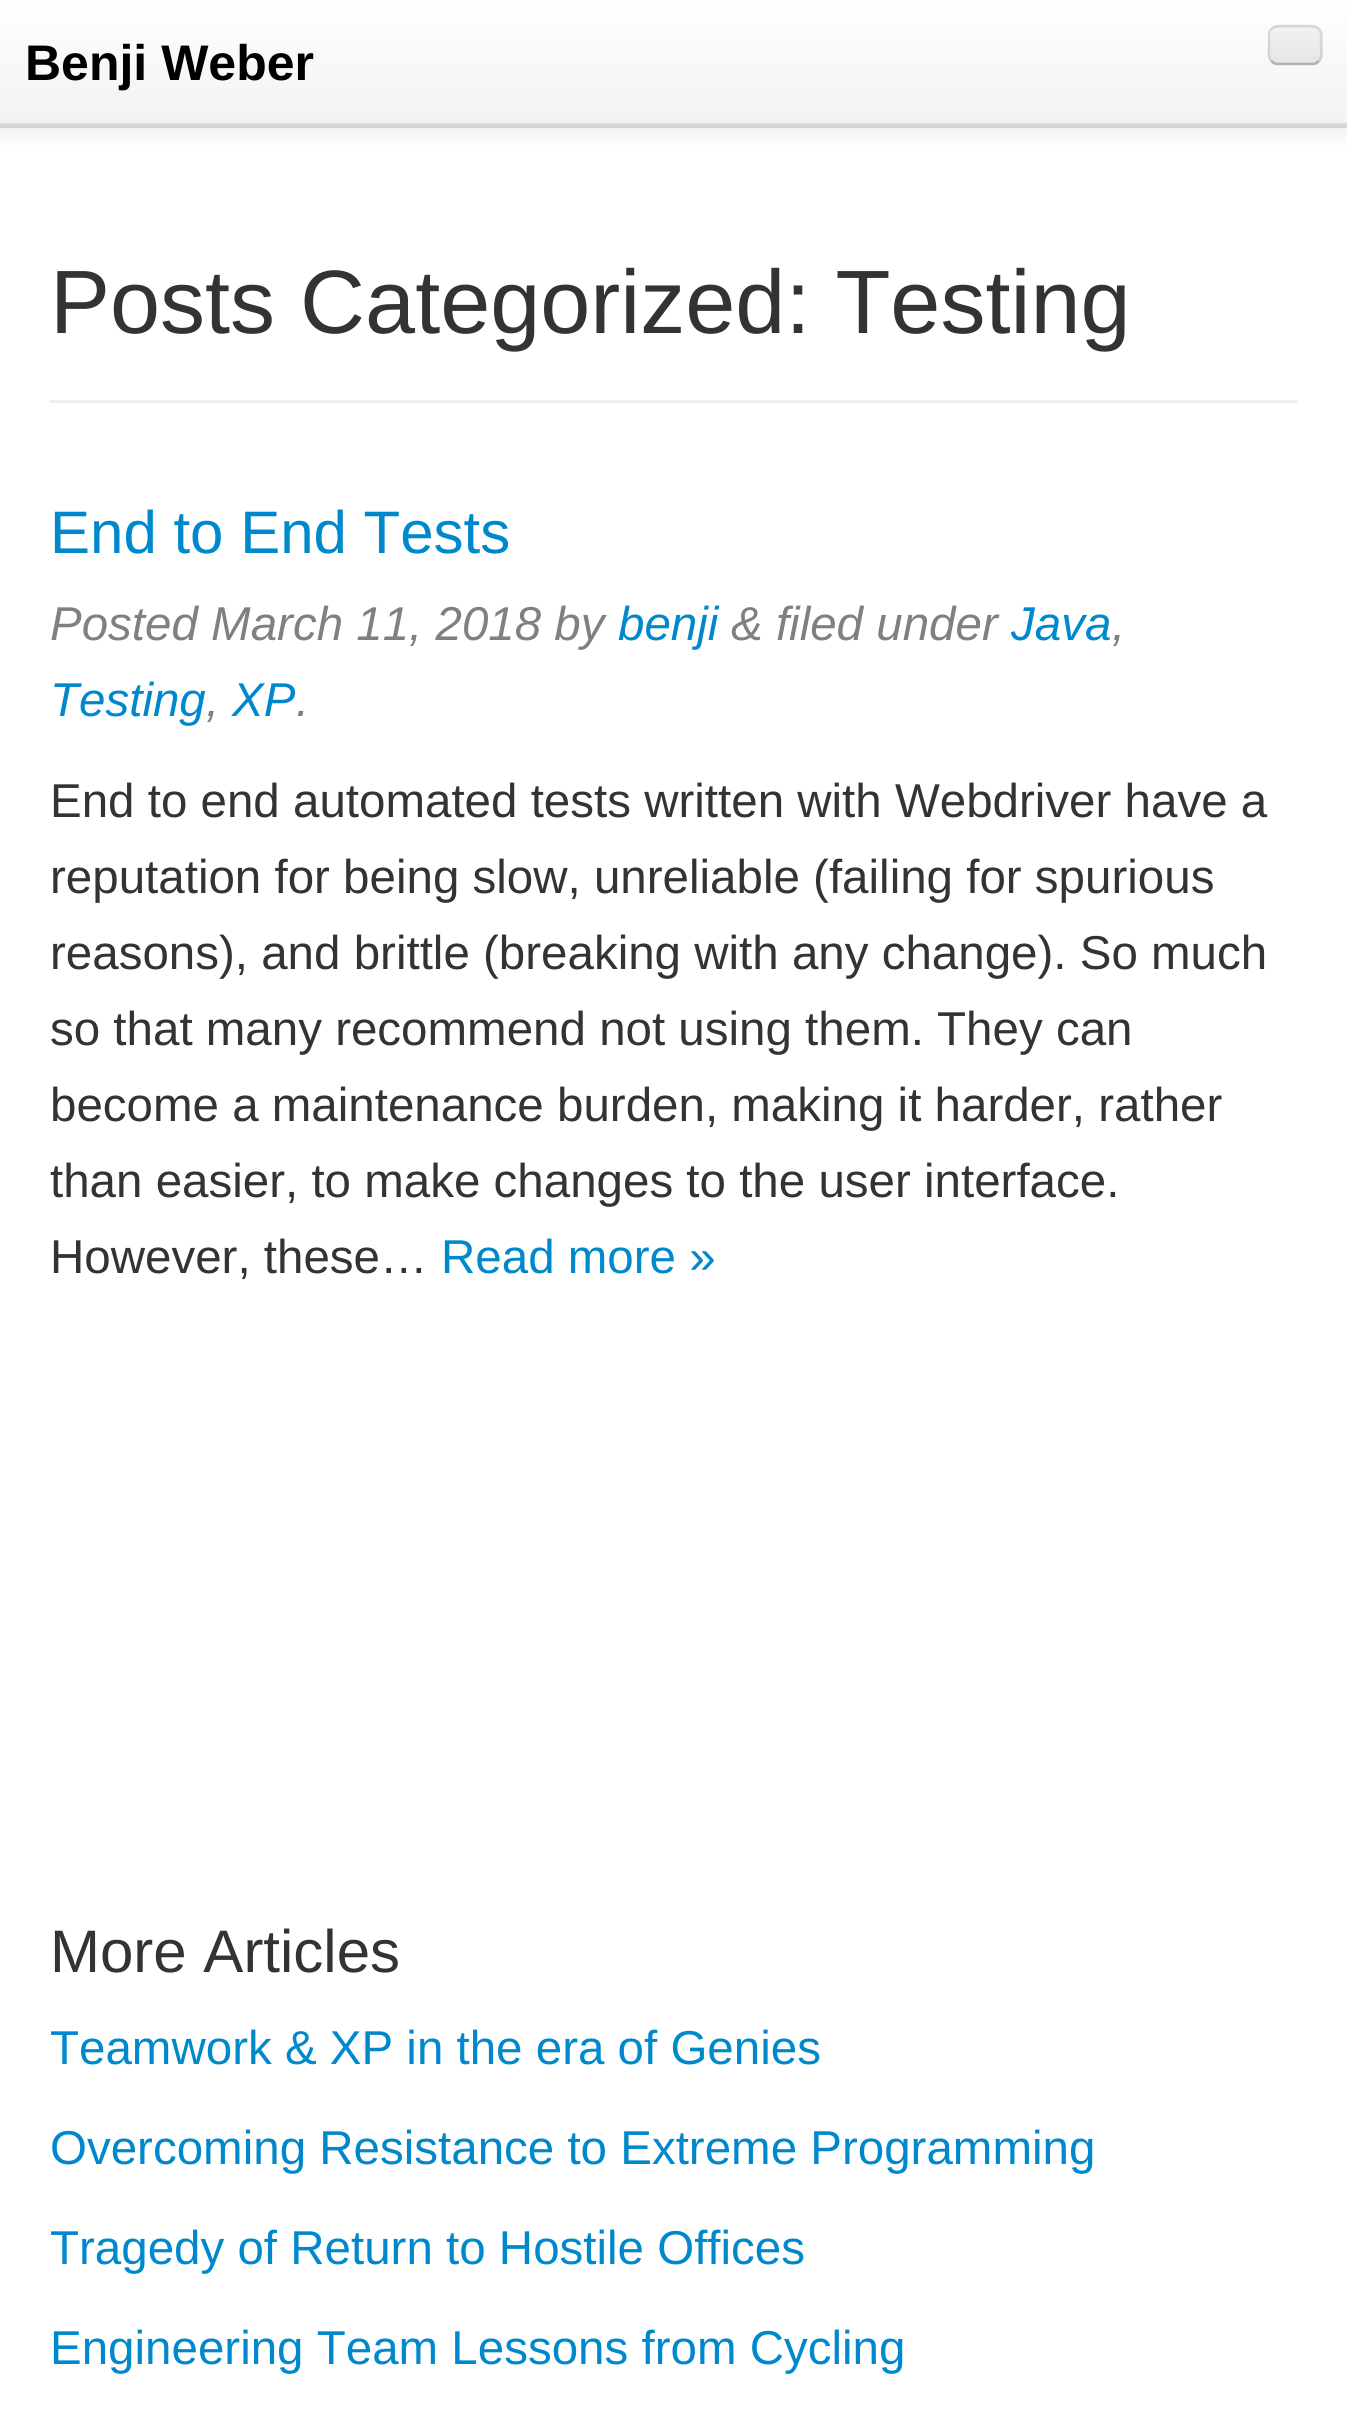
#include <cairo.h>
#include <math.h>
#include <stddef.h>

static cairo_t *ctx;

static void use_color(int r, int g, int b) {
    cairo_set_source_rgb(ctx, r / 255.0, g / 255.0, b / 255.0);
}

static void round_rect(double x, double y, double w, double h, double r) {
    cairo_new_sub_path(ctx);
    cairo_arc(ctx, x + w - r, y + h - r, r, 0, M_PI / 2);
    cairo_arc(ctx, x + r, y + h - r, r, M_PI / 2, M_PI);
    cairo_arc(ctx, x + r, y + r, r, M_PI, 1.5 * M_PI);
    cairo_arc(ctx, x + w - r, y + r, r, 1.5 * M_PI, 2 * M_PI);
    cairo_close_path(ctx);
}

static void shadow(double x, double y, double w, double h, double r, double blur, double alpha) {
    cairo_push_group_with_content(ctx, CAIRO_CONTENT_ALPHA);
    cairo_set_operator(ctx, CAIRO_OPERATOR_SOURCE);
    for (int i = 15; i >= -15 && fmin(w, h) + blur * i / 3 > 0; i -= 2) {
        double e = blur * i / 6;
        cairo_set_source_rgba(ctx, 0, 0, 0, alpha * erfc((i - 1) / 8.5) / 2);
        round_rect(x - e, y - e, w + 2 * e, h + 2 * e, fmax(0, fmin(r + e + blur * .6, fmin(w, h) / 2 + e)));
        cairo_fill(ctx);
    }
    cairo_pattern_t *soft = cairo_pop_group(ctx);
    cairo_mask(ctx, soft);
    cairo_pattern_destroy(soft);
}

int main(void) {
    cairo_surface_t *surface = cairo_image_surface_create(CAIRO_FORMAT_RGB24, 1347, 2410);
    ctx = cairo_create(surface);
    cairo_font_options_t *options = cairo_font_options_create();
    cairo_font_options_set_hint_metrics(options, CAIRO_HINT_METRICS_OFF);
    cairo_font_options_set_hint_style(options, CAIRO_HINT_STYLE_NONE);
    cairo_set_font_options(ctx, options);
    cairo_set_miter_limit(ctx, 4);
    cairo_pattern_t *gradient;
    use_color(255, 255, 255);
    cairo_paint(ctx);
    use_color(0, 0, 0);
    shadow(0, 3, 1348, 127, 0, 12.5, 0.1);
    gradient = cairo_pattern_create_linear(674, 0, 674, 125);
    cairo_pattern_add_color_stop_rgba(gradient, 0, 1, 1, 1, 1);
    cairo_pattern_add_color_stop_rgba(gradient, 1, 0.949, 0.949, 0.949, 1);
    cairo_set_source(ctx, gradient);
    cairo_pattern_destroy(gradient);
    cairo_rectangle(ctx, 0, 0, 1347, 123);
    cairo_fill(ctx);
    gradient = cairo_pattern_create_linear(674, 0, 674, 125);
    cairo_pattern_add_color_stop_rgba(gradient, 0, 0.902, 0.902, 0.902, 1);
    cairo_pattern_add_color_stop_rgba(gradient, 1, 0.855, 0.855, 0.855, 1);
    cairo_set_source(ctx, gradient);
    cairo_pattern_destroy(gradient);
    cairo_rectangle(ctx, 0, 123, 1347, 2);
    cairo_fill(ctx);
    use_color(212, 212, 212);
    cairo_rectangle(ctx, 0, 125, 1347, 3);
    cairo_fill(ctx);
    cairo_select_font_face(ctx, "Liberation Sans", CAIRO_FONT_SLANT_NORMAL, CAIRO_FONT_WEIGHT_BOLD);
    cairo_set_font_size(ctx, 50);
    use_color(0, 0, 0);
    cairo_move_to(ctx, 25, 80);
    cairo_show_text(ctx, "Benji Weber");
    use_color(237, 237, 237);
    round_rect(1268, 25, 55, 40, 10);
    cairo_fill(ctx);
    cairo_save(ctx);
    round_rect(1268, 25, 55, 40, 10);
    cairo_clip(ctx);
    gradient = cairo_pattern_create_linear(1295, 28, 1295, 63);
    cairo_pattern_add_color_stop_rgba(gradient, 0, 0.949, 0.949, 0.949, 1);
    cairo_pattern_add_color_stop_rgba(gradient, 1, 0.898, 0.898, 0.898, 1);
    cairo_set_source(ctx, gradient);
    cairo_pattern_destroy(gradient);
    cairo_rectangle(ctx, 1268, 28, 55, 35);
    cairo_fill(ctx);
    cairo_restore(ctx);
    cairo_new_path(ctx);
    cairo_move_to(ctx, 1318.5, 61);
    cairo_curve_to(ctx, 1317, 63, 1315, 64, 1312.5, 64);
    cairo_line_to(ctx, 1277.5, 64);
    cairo_curve_to(ctx, 1275, 64, 1273, 63, 1271.5, 61);
    cairo_set_source_rgba(ctx, 0, 0, 0, 0.25);
    cairo_set_line_width(ctx, 2.5);
    cairo_stroke(ctx);
    cairo_new_path(ctx);
    cairo_move_to(ctx, 1271.5, 61);
    cairo_curve_to(ctx, 1267, 57, 1269, 50, 1269, 45);
    cairo_line_to(ctx, 1269, 33.5);
    cairo_curve_to(ctx, 1270.5, 26, 1277.5, 26, 1283.5, 26);
    cairo_line_to(ctx, 1306.5, 26);
    cairo_curve_to(ctx, 1312.5, 26, 1319.5, 26, 1321, 33.5);
    cairo_line_to(ctx, 1321, 45);
    cairo_curve_to(ctx, 1321, 50, 1323, 57, 1318.5, 61);
    cairo_set_source_rgba(ctx, 0, 0, 0, 0.1);
    cairo_stroke(ctx);
    use_color(238, 238, 238);
    cairo_rectangle(ctx, 50, 400, 1248, 3);
    cairo_fill(ctx);
    cairo_select_font_face(ctx, "Liberation Sans", CAIRO_FONT_SLANT_NORMAL, CAIRO_FONT_WEIGHT_NORMAL);
    cairo_set_font_size(ctx, 90);
    use_color(51, 51, 51);
    cairo_move_to(ctx, 50, 333);
    cairo_show_text(ctx, "Posts Categorized: Testing");
    cairo_set_font_size(ctx, 60);
    use_color(0, 136, 204);
    cairo_move_to(ctx, 50, 553);
    cairo_show_text(ctx, "End to End Tests");
    cairo_select_font_face(ctx, "Liberation Sans", CAIRO_FONT_SLANT_ITALIC, CAIRO_FONT_WEIGHT_NORMAL);
    cairo_set_font_size(ctx, 47.5);
    use_color(128, 128, 128);
    cairo_move_to(ctx, 50, 640);
    cairo_show_text(ctx, "Posted March 11, 2018 by");
    use_color(0, 136, 204);
    cairo_move_to(ctx, 618, 640);
    cairo_show_text(ctx, "benji");
    use_color(128, 128, 128);
    cairo_move_to(ctx, 731, 640);
    cairo_show_text(ctx, "& filed under");
    use_color(0, 136, 204);
    cairo_move_to(ctx, 1011, 640);
    cairo_show_text(ctx, "Java");
    use_color(128, 128, 128);
    cairo_move_to(ctx, 1112, 640);
    cairo_show_text(ctx, ",");
    use_color(0, 136, 204);
    cairo_move_to(ctx, 50, 716);
    cairo_show_text(ctx, "Testing");
    use_color(128, 128, 128);
    cairo_move_to(ctx, 206, 716);
    cairo_show_text(ctx, ",");
    use_color(0, 136, 204);
    cairo_move_to(ctx, 232, 716);
    cairo_show_text(ctx, "XP");
    use_color(128, 128, 128);
    cairo_move_to(ctx, 296, 716);
    cairo_show_text(ctx, ".");
    cairo_select_font_face(ctx, "Liberation Sans", CAIRO_FONT_SLANT_NORMAL, CAIRO_FONT_WEIGHT_NORMAL);
    use_color(51, 51, 51);
    cairo_move_to(ctx, 50, 817);
    cairo_show_text(ctx, "End to end automated tests written with Webdriver have a");
    cairo_move_to(ctx, 50, 893);
    cairo_show_text(ctx, "reputation for being slow, unreliable (failing for spurious");
    cairo_move_to(ctx, 50, 969);
    cairo_show_text(ctx, "reasons), and brittle (breaking with any change). So much");
    cairo_move_to(ctx, 50, 1045);
    cairo_show_text(ctx, "so that many recommend not using them. They can");
    cairo_move_to(ctx, 50, 1121);
    cairo_show_text(ctx, "become a maintenance burden, making it harder, rather");
    cairo_move_to(ctx, 50, 1197);
    cairo_show_text(ctx, "than easier, to make changes to the user interface.");
    cairo_move_to(ctx, 50, 1273);
    cairo_show_text(ctx, "However, these…");
    use_color(0, 136, 204);
    cairo_move_to(ctx, 441, 1273);
    cairo_show_text(ctx, "Read more »");
    cairo_set_font_size(ctx, 60);
    use_color(51, 51, 51);
    cairo_move_to(ctx, 50, 1972);
    cairo_show_text(ctx, "More Articles");
    cairo_set_font_size(ctx, 47.5);
    use_color(0, 136, 204);
    cairo_move_to(ctx, 50, 2064);
    cairo_show_text(ctx, "Teamwork & XP in the era of Genies");
    cairo_move_to(ctx, 50, 2164);
    cairo_show_text(ctx, "Overcoming Resistance to Extreme Programming");
    cairo_move_to(ctx, 50, 2264);
    cairo_show_text(ctx, "Tragedy of Return to Hostile Offices");
    cairo_move_to(ctx, 50, 2364);
    cairo_show_text(ctx, "Engineering Team Lessons from Cycling");
    cairo_surface_write_to_png(surface, "result.png");
    cairo_font_options_destroy(options);
    cairo_destroy(ctx);
    cairo_surface_destroy(surface);
    return 0;
}
